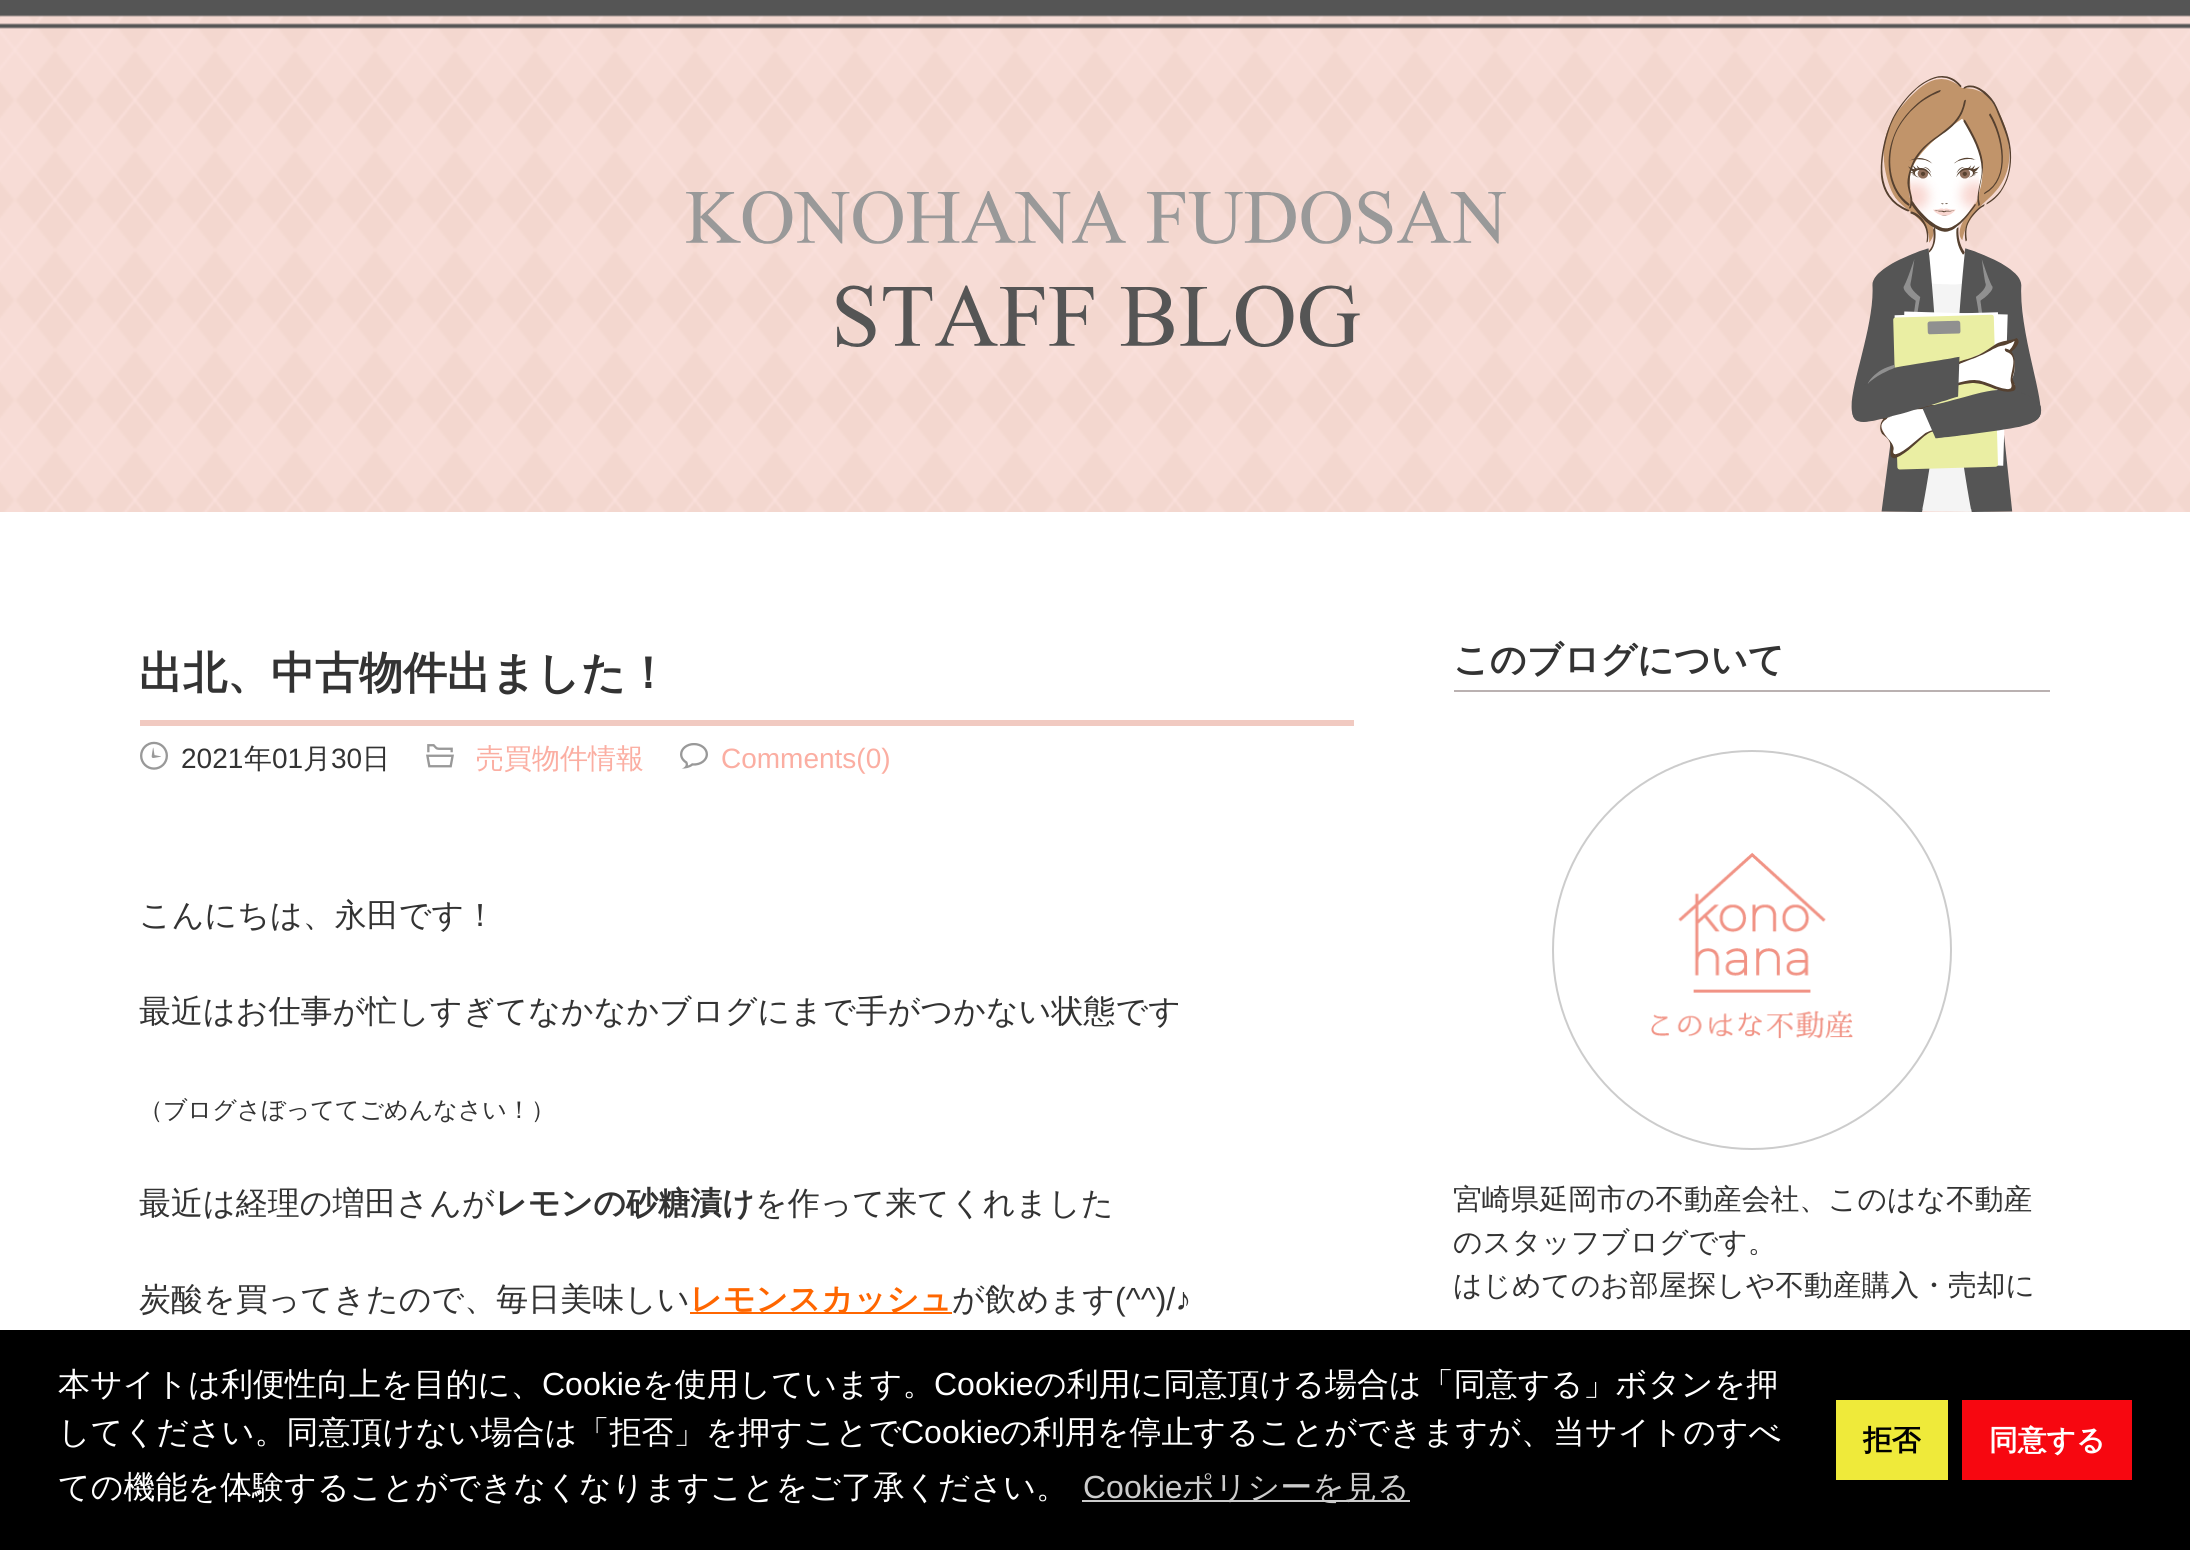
#include <cairo.h>
#include <math.h>
#include <stddef.h>

static cairo_t *ctx;

static void use_color(int r, int g, int b) {
    cairo_set_source_rgb(ctx, r / 255.0, g / 255.0, b / 255.0);
}

static void picture(const char *path, double x, double y, double w, double h) {
    cairo_surface_t *image = cairo_image_surface_create_from_png(path);
    cairo_save(ctx);
    cairo_set_source_surface(ctx, image, x, y);
    cairo_rectangle(ctx, x, y, w, h);
    cairo_fill(ctx);
    cairo_restore(ctx);
    cairo_surface_destroy(image);
}

int main(void) {
    cairo_surface_t *surface = cairo_image_surface_create(CAIRO_FORMAT_RGB24, 2190, 1550);
    ctx = cairo_create(surface);
    cairo_font_options_t *options = cairo_font_options_create();
    cairo_font_options_set_hint_metrics(options, CAIRO_HINT_METRICS_OFF);
    cairo_font_options_set_hint_style(options, CAIRO_HINT_STYLE_NONE);
    cairo_set_font_options(ctx, options);
    cairo_set_miter_limit(ctx, 4);
    use_color(255, 255, 255);
    cairo_paint(ctx);
    picture("img1.png", 0, 0, 2190, 512);
    picture("img2.png", 686, 76, 1356, 436);
    use_color(241, 202, 193);
    cairo_rectangle(ctx, 140, 720, 1214, 6);
    cairo_fill(ctx);
    cairo_select_font_face(ctx, "WenQuanYi Zen Hei", CAIRO_FONT_SLANT_NORMAL, CAIRO_FONT_WEIGHT_BOLD);
    cairo_set_font_size(ctx, 44);
    use_color(51, 51, 51);
    cairo_move_to(ctx, 139, 688);
    cairo_show_text(ctx, "出北、中古物件出ました！");
    picture("img3.png", 140, 741, 28, 29);
    cairo_select_font_face(ctx, "Liberation Sans", CAIRO_FONT_SLANT_NORMAL, CAIRO_FONT_WEIGHT_NORMAL);
    cairo_set_font_size(ctx, 28);
    cairo_move_to(ctx, 181, 768);
    cairo_show_text(ctx, "2021");
    cairo_select_font_face(ctx, "WenQuanYi Zen Hei Medium", CAIRO_FONT_SLANT_NORMAL, CAIRO_FONT_WEIGHT_NORMAL);
    cairo_move_to(ctx, 244, 768);
    cairo_show_text(ctx, "年");
    cairo_select_font_face(ctx, "Liberation Sans", CAIRO_FONT_SLANT_NORMAL, CAIRO_FONT_WEIGHT_NORMAL);
    cairo_move_to(ctx, 272, 768);
    cairo_show_text(ctx, "01");
    cairo_select_font_face(ctx, "WenQuanYi Zen Hei Medium", CAIRO_FONT_SLANT_NORMAL, CAIRO_FONT_WEIGHT_NORMAL);
    cairo_move_to(ctx, 303, 768);
    cairo_show_text(ctx, "月");
    cairo_select_font_face(ctx, "Liberation Sans", CAIRO_FONT_SLANT_NORMAL, CAIRO_FONT_WEIGHT_NORMAL);
    cairo_move_to(ctx, 331, 768);
    cairo_show_text(ctx, "30");
    cairo_select_font_face(ctx, "WenQuanYi Zen Hei Medium", CAIRO_FONT_SLANT_NORMAL, CAIRO_FONT_WEIGHT_NORMAL);
    cairo_move_to(ctx, 362, 768);
    cairo_show_text(ctx, "日");
    picture("img4.png", 426, 744, 28, 24);
    use_color(251, 174, 162);
    cairo_move_to(ctx, 476, 768);
    cairo_show_text(ctx, "売買物件情報");
    picture("img5.png", 680, 743, 28, 26);
    cairo_select_font_face(ctx, "Liberation Sans", CAIRO_FONT_SLANT_NORMAL, CAIRO_FONT_WEIGHT_NORMAL);
    cairo_move_to(ctx, 721, 768);
    cairo_show_text(ctx, "Comments(0)");
    cairo_select_font_face(ctx, "WenQuanYi Zen Hei Medium", CAIRO_FONT_SLANT_NORMAL, CAIRO_FONT_WEIGHT_NORMAL);
    cairo_set_font_size(ctx, 32);
    use_color(51, 51, 51);
    cairo_move_to(ctx, 139, 926);
    cairo_show_text(ctx, "こんにちは、永田です！");
    cairo_move_to(ctx, 139, 1022);
    cairo_show_text(ctx, "最近はお仕事が忙しすぎてなかなかブログにまで手がつかない状態です");
    cairo_set_font_size(ctx, 24);
    cairo_move_to(ctx, 139, 1118);
    cairo_show_text(ctx, "（ブログさぼっててごめんなさい！）");
    cairo_set_font_size(ctx, 32);
    cairo_move_to(ctx, 139, 1214);
    cairo_show_text(ctx, "最近は経理の増田さんが");
    cairo_select_font_face(ctx, "WenQuanYi Zen Hei", CAIRO_FONT_SLANT_NORMAL, CAIRO_FONT_WEIGHT_BOLD);
    cairo_move_to(ctx, 495, 1214);
    cairo_show_text(ctx, "レモンの砂糖漬け");
    cairo_select_font_face(ctx, "WenQuanYi Zen Hei Medium", CAIRO_FONT_SLANT_NORMAL, CAIRO_FONT_WEIGHT_NORMAL);
    cairo_move_to(ctx, 755, 1214);
    cairo_show_text(ctx, "を作って来てくれました");
    cairo_move_to(ctx, 139, 1310);
    cairo_show_text(ctx, "炭酸を買ってきたので、毎日美味しい");
    use_color(255, 102, 0);
    cairo_rectangle(ctx, 690, 1312, 262, 2);
    cairo_fill(ctx);
    cairo_select_font_face(ctx, "WenQuanYi Zen Hei", CAIRO_FONT_SLANT_NORMAL, CAIRO_FONT_WEIGHT_BOLD);
    cairo_move_to(ctx, 690, 1310);
    cairo_show_text(ctx, "レモンスカッシュ");
    cairo_select_font_face(ctx, "WenQuanYi Zen Hei Medium", CAIRO_FONT_SLANT_NORMAL, CAIRO_FONT_WEIGHT_NORMAL);
    use_color(51, 51, 51);
    cairo_move_to(ctx, 952, 1310);
    cairo_show_text(ctx, "が飲めます");
    cairo_select_font_face(ctx, "Liberation Sans", CAIRO_FONT_SLANT_NORMAL, CAIRO_FONT_WEIGHT_NORMAL);
    cairo_move_to(ctx, 1115, 1310);
    cairo_show_text(ctx, "(^^)/♪");
    use_color(186, 177, 177);
    cairo_rectangle(ctx, 1454, 690, 596, 2);
    cairo_fill(ctx);
    cairo_select_font_face(ctx, "WenQuanYi Zen Hei", CAIRO_FONT_SLANT_NORMAL, CAIRO_FONT_WEIGHT_BOLD);
    cairo_set_font_size(ctx, 36);
    use_color(51, 51, 51);
    cairo_move_to(ctx, 1453, 672);
    cairo_show_text(ctx, "このブログについて");
    picture("img6.png", 1651, 852, 202, 187);
    cairo_arc(ctx, 1752, 950, 199, 0, 2 * M_PI);
    use_color(204, 204, 204);
    cairo_stroke(ctx);
    cairo_select_font_face(ctx, "WenQuanYi Zen Hei Medium", CAIRO_FONT_SLANT_NORMAL, CAIRO_FONT_WEIGHT_NORMAL);
    cairo_set_font_size(ctx, 28.8);
    use_color(51, 51, 51);
    cairo_move_to(ctx, 1453, 1209);
    cairo_show_text(ctx, "宮崎県延岡市の不動産会社、このはな不動産");
    cairo_move_to(ctx, 1453, 1252);
    cairo_show_text(ctx, "のスタッフブログです。");
    cairo_move_to(ctx, 1453, 1295);
    cairo_show_text(ctx, "はじめてのお部屋探しや不動産購入・売却に");
    use_color(0, 0, 0);
    cairo_rectangle(ctx, 0, 1330, 2190, 220);
    cairo_fill(ctx);
    cairo_set_font_size(ctx, 32);
    use_color(255, 255, 255);
    cairo_move_to(ctx, 58, 1395);
    cairo_show_text(ctx, "本サイトは利便性向上を目的に、");
    cairo_select_font_face(ctx, "Liberation Sans", CAIRO_FONT_SLANT_NORMAL, CAIRO_FONT_WEIGHT_NORMAL);
    cairo_move_to(ctx, 542, 1395);
    cairo_show_text(ctx, "Cookie");
    cairo_select_font_face(ctx, "WenQuanYi Zen Hei Medium", CAIRO_FONT_SLANT_NORMAL, CAIRO_FONT_WEIGHT_NORMAL);
    cairo_move_to(ctx, 642, 1395);
    cairo_show_text(ctx, "を使用しています。");
    cairo_select_font_face(ctx, "Liberation Sans", CAIRO_FONT_SLANT_NORMAL, CAIRO_FONT_WEIGHT_NORMAL);
    cairo_move_to(ctx, 934, 1395);
    cairo_show_text(ctx, "Cookie");
    cairo_select_font_face(ctx, "WenQuanYi Zen Hei Medium", CAIRO_FONT_SLANT_NORMAL, CAIRO_FONT_WEIGHT_NORMAL);
    cairo_move_to(ctx, 1034, 1395);
    cairo_show_text(ctx, "の利用に同意頂ける場合は「同意する」ボタンを押");
    cairo_move_to(ctx, 58, 1443);
    cairo_show_text(ctx, "してください。同意頂けない場合は「拒否」を押すことで");
    cairo_select_font_face(ctx, "Liberation Sans", CAIRO_FONT_SLANT_NORMAL, CAIRO_FONT_WEIGHT_NORMAL);
    cairo_move_to(ctx, 901, 1443);
    cairo_show_text(ctx, "Cookie");
    cairo_select_font_face(ctx, "WenQuanYi Zen Hei Medium", CAIRO_FONT_SLANT_NORMAL, CAIRO_FONT_WEIGHT_NORMAL);
    cairo_move_to(ctx, 1000, 1443);
    cairo_show_text(ctx, "の利用を停止することができますが、当サイトのすべ");
    cairo_move_to(ctx, 58, 1498);
    cairo_show_text(ctx, "ての機能を体験することができなくなりますことをご了承ください。");
    cairo_select_font_face(ctx, "Liberation Sans", CAIRO_FONT_SLANT_NORMAL, CAIRO_FONT_WEIGHT_NORMAL);
    use_color(204, 204, 204);
    cairo_move_to(ctx, 1083, 1498);
    cairo_show_text(ctx, "Cookie");
    cairo_rectangle(ctx, 1082, 1500, 328, 2);
    cairo_fill(ctx);
    cairo_select_font_face(ctx, "WenQuanYi Zen Hei Medium", CAIRO_FONT_SLANT_NORMAL, CAIRO_FONT_WEIGHT_NORMAL);
    cairo_move_to(ctx, 1182, 1498);
    cairo_show_text(ctx, "ポリシーを見る");
    use_color(239, 234, 58);
    cairo_rectangle(ctx, 1836, 1400, 112, 80);
    cairo_fill(ctx);
    cairo_select_font_face(ctx, "WenQuanYi Zen Hei", CAIRO_FONT_SLANT_NORMAL, CAIRO_FONT_WEIGHT_BOLD);
    cairo_set_font_size(ctx, 28.8);
    use_color(0, 0, 0);
    cairo_move_to(ctx, 1863, 1450);
    cairo_show_text(ctx, "拒否");
    use_color(247, 7, 16);
    cairo_rectangle(ctx, 1962, 1400, 170, 80);
    cairo_fill(ctx);
    use_color(255, 255, 255);
    cairo_move_to(ctx, 1989, 1450);
    cairo_show_text(ctx, "同意する");
    cairo_surface_write_to_png(surface, "result.png");
    cairo_font_options_destroy(options);
    cairo_destroy(ctx);
    cairo_surface_destroy(surface);
    return 0;
}
